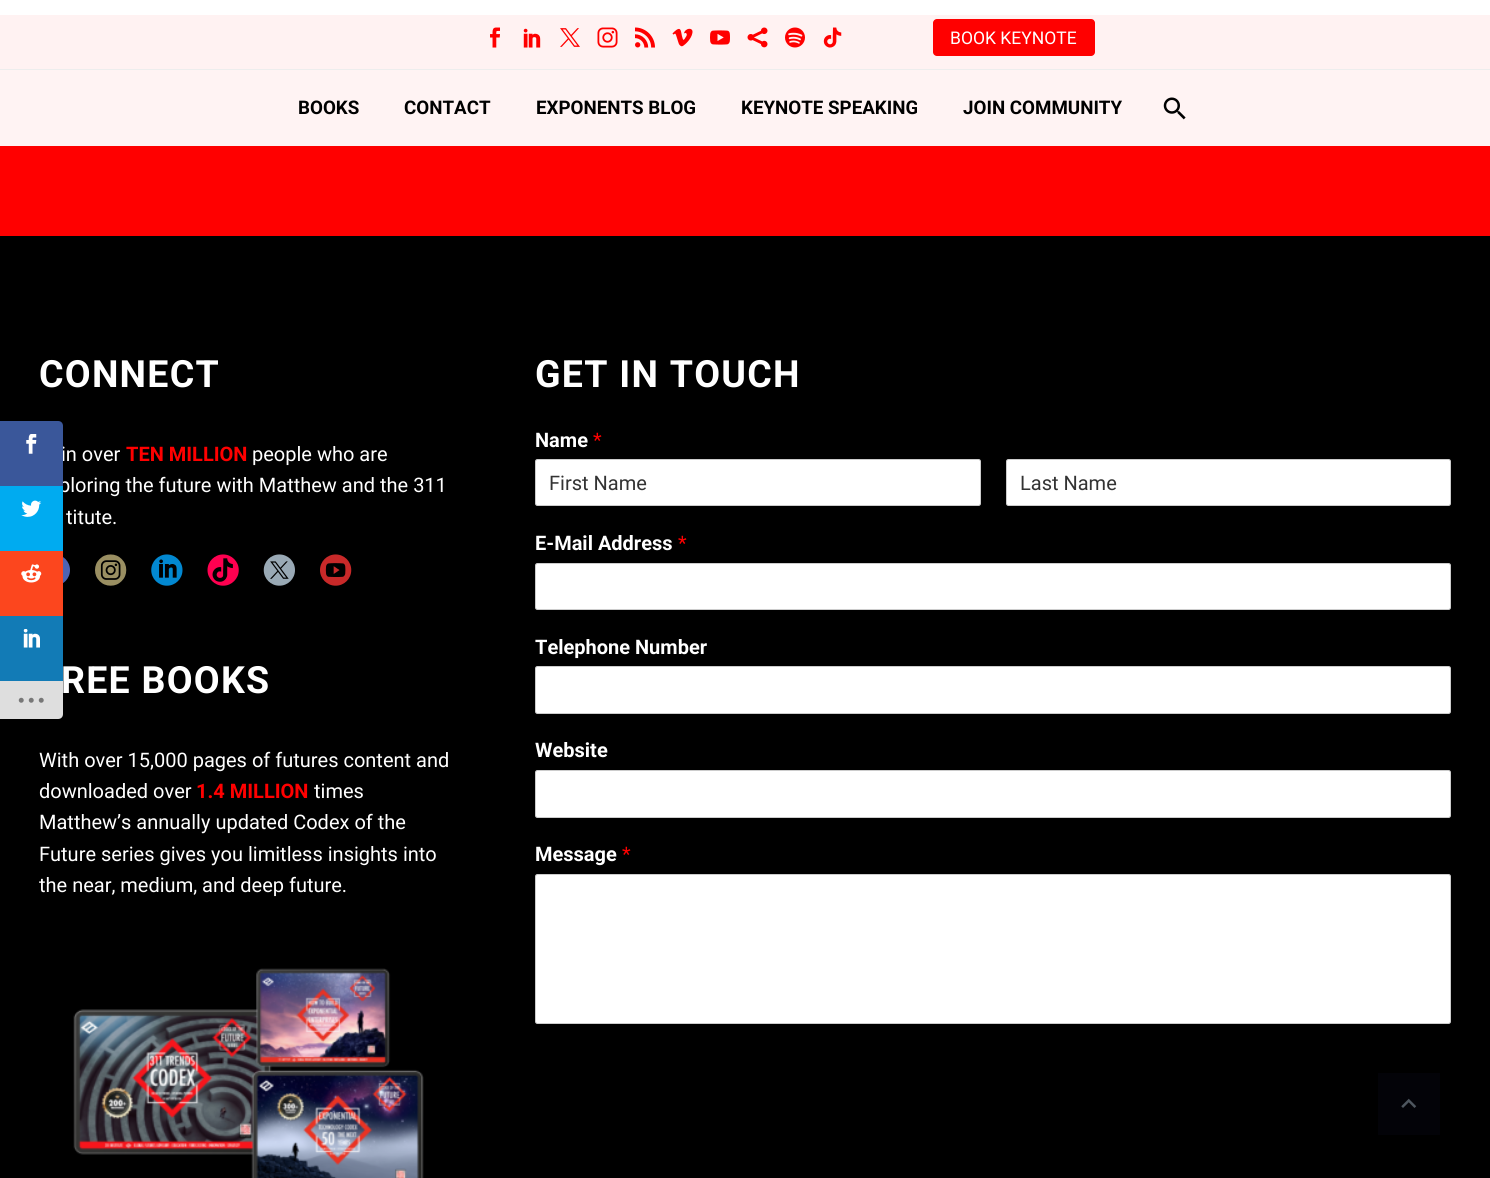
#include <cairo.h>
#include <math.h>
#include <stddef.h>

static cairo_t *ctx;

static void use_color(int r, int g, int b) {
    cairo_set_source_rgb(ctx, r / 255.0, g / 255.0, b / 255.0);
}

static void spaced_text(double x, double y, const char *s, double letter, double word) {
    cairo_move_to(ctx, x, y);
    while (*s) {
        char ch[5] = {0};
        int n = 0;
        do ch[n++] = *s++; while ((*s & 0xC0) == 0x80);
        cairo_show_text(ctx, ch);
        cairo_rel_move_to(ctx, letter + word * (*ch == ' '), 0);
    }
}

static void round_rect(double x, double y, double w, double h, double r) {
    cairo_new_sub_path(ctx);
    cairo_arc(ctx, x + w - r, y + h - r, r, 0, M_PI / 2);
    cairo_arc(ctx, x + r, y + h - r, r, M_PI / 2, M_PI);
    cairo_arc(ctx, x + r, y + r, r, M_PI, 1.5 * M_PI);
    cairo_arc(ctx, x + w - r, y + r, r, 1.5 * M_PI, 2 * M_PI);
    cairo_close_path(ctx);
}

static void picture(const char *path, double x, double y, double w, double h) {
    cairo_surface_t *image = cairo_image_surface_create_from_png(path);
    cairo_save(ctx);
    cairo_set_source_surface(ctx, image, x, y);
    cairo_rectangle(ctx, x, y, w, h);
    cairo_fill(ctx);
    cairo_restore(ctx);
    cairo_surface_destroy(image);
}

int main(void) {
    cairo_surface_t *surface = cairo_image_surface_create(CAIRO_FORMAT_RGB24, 1490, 1178);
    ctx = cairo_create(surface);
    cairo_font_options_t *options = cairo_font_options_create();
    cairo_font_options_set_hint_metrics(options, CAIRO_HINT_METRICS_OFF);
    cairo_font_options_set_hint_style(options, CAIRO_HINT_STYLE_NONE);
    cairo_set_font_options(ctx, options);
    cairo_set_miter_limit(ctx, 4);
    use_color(255, 255, 255);
    cairo_paint(ctx);
    use_color(0, 0, 0);
    cairo_rectangle(ctx, 0, 236, 1490, 942);
    cairo_fill(ctx);
    cairo_select_font_face(ctx, "Roboto", CAIRO_FONT_SLANT_NORMAL, CAIRO_FONT_WEIGHT_NORMAL);
    cairo_set_font_size(ctx, 20);
    use_color(255, 255, 255);
    cairo_move_to(ctx, 61, 461);
    cairo_show_text(ctx, "in over");
    cairo_move_to(ctx, 59, 492);
    cairo_show_text(ctx, "ploring the future with Matthew and the 311");
    use_color(58, 87, 154);
    cairo_new_path(ctx);
    cairo_move_to(ctx, 0, 421);
    cairo_line_to(ctx, 58, 421);
    cairo_curve_to(ctx, 61, 421, 63, 423, 63, 426);
    cairo_line_to(ctx, 63, 486);
    cairo_line_to(ctx, 0, 486);
    cairo_close_path(ctx);
    cairo_fill(ctx);
    picture("img1.png", 26, 434, 11, 20);
    use_color(0, 171, 240);
    cairo_rectangle(ctx, 0, 486, 63, 65);
    cairo_fill(ctx);
    picture("img2.png", 21, 500, 21, 17);
    use_color(252, 70, 30);
    cairo_rectangle(ctx, 0, 551, 63, 65);
    cairo_fill(ctx);
    picture("img3.png", 21, 564, 21, 19);
    cairo_select_font_face(ctx, "Roboto", CAIRO_FONT_SLANT_NORMAL, CAIRO_FONT_WEIGHT_BOLD);
    cairo_set_font_size(ctx, 37.5);
    use_color(255, 255, 255);
    spaced_text(61, 693, "REE BOOKS", 1.25, 0);
    use_color(18, 123, 182);
    cairo_rectangle(ctx, 0, 616, 63, 65);
    cairo_fill(ctx);
    picture("img4.png", 23, 629, 17, 19);
    use_color(222, 222, 222);
    cairo_new_path(ctx);
    cairo_move_to(ctx, 0, 681);
    cairo_line_to(ctx, 63, 681);
    cairo_line_to(ctx, 63, 714);
    cairo_curve_to(ctx, 63, 717, 61, 719, 58, 719);
    cairo_line_to(ctx, 0, 719);
    cairo_close_path(ctx);
    cairo_fill(ctx);
    picture("img5.png", 18, 697, 26, 6);
    use_color(237, 237, 237);
    cairo_rectangle(ctx, 0, 69, 1490, 1);
    cairo_fill(ctx);
    use_color(255, 242, 242);
    cairo_rectangle(ctx, 0, 15, 1490, 54);
    cairo_fill(ctx);
    picture("img6.png", 490, 27, 10, 21);
    picture("img7.png", 523, 28, 18, 20);
    picture("img8.png", 560, 28, 20, 19);
    picture("img9.png", 597, 27, 21, 21);
    picture("img10.png", 635, 27, 20, 21);
    picture("img11.png", 672, 28, 21, 19);
    picture("img12.png", 710, 30, 20, 15);
    picture("img13.png", 747, 27, 21, 21);
    picture("img14.png", 785, 27, 20, 21);
    picture("img15.png", 823, 27, 19, 21);
    use_color(255, 0, 0);
    round_rect(933, 19, 162, 37, 4);
    cairo_fill(ctx);
    cairo_select_font_face(ctx, "Roboto", CAIRO_FONT_SLANT_NORMAL, CAIRO_FONT_WEIGHT_NORMAL);
    cairo_set_font_size(ctx, 17.5);
    use_color(255, 255, 255);
    cairo_move_to(ctx, 950, 44);
    cairo_show_text(ctx, "BOOK KEYNOTE");
    use_color(255, 0, 0);
    cairo_rectangle(ctx, 0, 70, 1490, 166);
    cairo_fill(ctx);
    cairo_set_source_rgba(ctx, 1, 1, 1, 0.95);
    cairo_rectangle(ctx, 0, 70, 1490, 76);
    cairo_fill(ctx);
    cairo_select_font_face(ctx, "Roboto", CAIRO_FONT_SLANT_NORMAL, CAIRO_FONT_WEIGHT_BOLD);
    cairo_set_font_size(ctx, 18.75);
    use_color(0, 0, 0);
    cairo_move_to(ctx, 298, 114);
    cairo_show_text(ctx, "BOOKS");
    cairo_move_to(ctx, 404, 114);
    cairo_show_text(ctx, "CONTACT");
    cairo_move_to(ctx, 536, 114);
    cairo_show_text(ctx, "EXPONENTS BLOG");
    cairo_move_to(ctx, 741, 114);
    cairo_show_text(ctx, "KEYNOTE SPEAKING");
    cairo_move_to(ctx, 963, 114);
    cairo_show_text(ctx, "JOIN COMMUNITY");
    picture("img16.png", 1163, 97, 23, 23);
    cairo_set_font_size(ctx, 37.5);
    use_color(255, 255, 255);
    spaced_text(39, 387, "CONNECT", 1.25, 0);
    cairo_set_font_size(ctx, 20);
    use_color(255, 0, 0);
    cairo_move_to(ctx, 126, 461);
    cairo_show_text(ctx, "TEN MILLION");
    cairo_select_font_face(ctx, "Roboto", CAIRO_FONT_SLANT_NORMAL, CAIRO_FONT_WEIGHT_NORMAL);
    use_color(255, 255, 255);
    cairo_move_to(ctx, 252, 461);
    cairo_show_text(ctx, "people who are");
    cairo_move_to(ctx, 66, 524);
    cairo_show_text(ctx, "titute.");
    picture("img17.png", 63, 557, 7, 26);
    picture("img18.png", 95, 554, 32, 32);
    picture("img19.png", 151, 554, 32, 32);
    picture("img20.png", 207, 554, 32, 32);
    picture("img21.png", 263, 554, 32, 32);
    picture("img22.png", 320, 554, 32, 32);
    cairo_move_to(ctx, 39, 767);
    cairo_show_text(ctx, "With over 15,000 pages of futures content and");
    cairo_move_to(ctx, 39, 798);
    cairo_show_text(ctx, "downloaded over");
    cairo_select_font_face(ctx, "Roboto", CAIRO_FONT_SLANT_NORMAL, CAIRO_FONT_WEIGHT_BOLD);
    use_color(255, 0, 0);
    cairo_move_to(ctx, 196, 798);
    cairo_show_text(ctx, "1.4 MILLION");
    cairo_select_font_face(ctx, "Roboto", CAIRO_FONT_SLANT_NORMAL, CAIRO_FONT_WEIGHT_NORMAL);
    use_color(255, 255, 255);
    cairo_move_to(ctx, 314, 798);
    cairo_show_text(ctx, "times");
    cairo_move_to(ctx, 39, 829);
    cairo_show_text(ctx, "Matthew’s annually updated Codex of the");
    cairo_move_to(ctx, 39, 861);
    cairo_show_text(ctx, "Future series gives you limitless insights into");
    cairo_move_to(ctx, 39, 892);
    cairo_show_text(ctx, "the near, medium, and deep future.");
    picture("img23.png", 73, 968, 351, 210);
    cairo_select_font_face(ctx, "Roboto", CAIRO_FONT_SLANT_NORMAL, CAIRO_FONT_WEIGHT_BOLD);
    cairo_set_font_size(ctx, 37.5);
    spaced_text(535, 387, "GET IN TOUCH", 1.25, 0);
    cairo_set_font_size(ctx, 20);
    cairo_move_to(ctx, 535, 447);
    cairo_show_text(ctx, "Name");
    cairo_select_font_face(ctx, "Roboto", CAIRO_FONT_SLANT_NORMAL, CAIRO_FONT_WEIGHT_NORMAL);
    use_color(255, 0, 0);
    cairo_move_to(ctx, 593, 447);
    cairo_show_text(ctx, "*");
    use_color(255, 255, 255);
    round_rect(535.5, 459.5, 445, 46, 2);
    cairo_fill_preserve(ctx);
    use_color(204, 204, 204);
    cairo_set_line_width(ctx, 1);
    cairo_stroke(ctx);
    use_color(51, 51, 51);
    cairo_move_to(ctx, 549, 490);
    cairo_show_text(ctx, "First Name");
    use_color(255, 255, 255);
    round_rect(1006.5, 459.5, 444, 46, 2);
    cairo_fill_preserve(ctx);
    use_color(204, 204, 204);
    cairo_stroke(ctx);
    use_color(51, 51, 51);
    cairo_move_to(ctx, 1020, 490);
    cairo_show_text(ctx, "Last Name");
    cairo_select_font_face(ctx, "Roboto", CAIRO_FONT_SLANT_NORMAL, CAIRO_FONT_WEIGHT_BOLD);
    use_color(255, 255, 255);
    cairo_move_to(ctx, 535, 550);
    cairo_show_text(ctx, "E-Mail Address");
    cairo_select_font_face(ctx, "Roboto", CAIRO_FONT_SLANT_NORMAL, CAIRO_FONT_WEIGHT_NORMAL);
    use_color(255, 0, 0);
    cairo_move_to(ctx, 678, 550);
    cairo_show_text(ctx, "*");
    use_color(255, 255, 255);
    round_rect(535.5, 563.5, 915, 46, 2);
    cairo_fill_preserve(ctx);
    use_color(204, 204, 204);
    cairo_stroke(ctx);
    cairo_select_font_face(ctx, "Roboto", CAIRO_FONT_SLANT_NORMAL, CAIRO_FONT_WEIGHT_BOLD);
    use_color(255, 255, 255);
    cairo_move_to(ctx, 535, 654);
    cairo_show_text(ctx, "Telephone Number");
    round_rect(535.5, 666.5, 915, 47, 2);
    cairo_fill_preserve(ctx);
    use_color(204, 204, 204);
    cairo_stroke(ctx);
    use_color(255, 255, 255);
    cairo_move_to(ctx, 535, 757);
    cairo_show_text(ctx, "Website");
    round_rect(535.5, 770.5, 915, 47, 2);
    cairo_fill_preserve(ctx);
    use_color(204, 204, 204);
    cairo_stroke(ctx);
    use_color(255, 255, 255);
    cairo_move_to(ctx, 535, 861);
    cairo_show_text(ctx, "Message");
    cairo_select_font_face(ctx, "Roboto", CAIRO_FONT_SLANT_NORMAL, CAIRO_FONT_WEIGHT_NORMAL);
    use_color(255, 0, 0);
    cairo_move_to(ctx, 622, 861);
    cairo_show_text(ctx, "*");
    use_color(255, 255, 255);
    round_rect(535.5, 874.5, 915, 149, 2);
    cairo_fill_preserve(ctx);
    use_color(204, 204, 204);
    cairo_stroke(ctx);
    use_color(3, 3, 8);
    cairo_rectangle(ctx, 1378, 1073, 62, 62);
    cairo_fill(ctx);
    picture("img24.png", 1401, 1098, 16, 10);
    cairo_surface_write_to_png(surface, "result.png");
    cairo_font_options_destroy(options);
    cairo_destroy(ctx);
    cairo_surface_destroy(surface);
    return 0;
}
